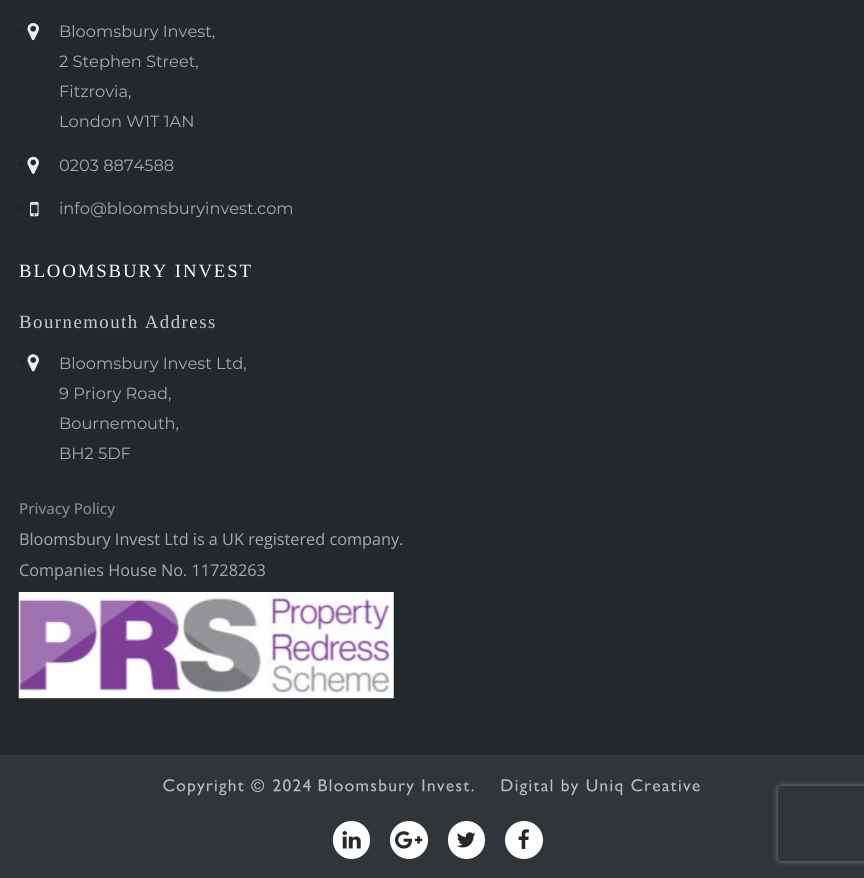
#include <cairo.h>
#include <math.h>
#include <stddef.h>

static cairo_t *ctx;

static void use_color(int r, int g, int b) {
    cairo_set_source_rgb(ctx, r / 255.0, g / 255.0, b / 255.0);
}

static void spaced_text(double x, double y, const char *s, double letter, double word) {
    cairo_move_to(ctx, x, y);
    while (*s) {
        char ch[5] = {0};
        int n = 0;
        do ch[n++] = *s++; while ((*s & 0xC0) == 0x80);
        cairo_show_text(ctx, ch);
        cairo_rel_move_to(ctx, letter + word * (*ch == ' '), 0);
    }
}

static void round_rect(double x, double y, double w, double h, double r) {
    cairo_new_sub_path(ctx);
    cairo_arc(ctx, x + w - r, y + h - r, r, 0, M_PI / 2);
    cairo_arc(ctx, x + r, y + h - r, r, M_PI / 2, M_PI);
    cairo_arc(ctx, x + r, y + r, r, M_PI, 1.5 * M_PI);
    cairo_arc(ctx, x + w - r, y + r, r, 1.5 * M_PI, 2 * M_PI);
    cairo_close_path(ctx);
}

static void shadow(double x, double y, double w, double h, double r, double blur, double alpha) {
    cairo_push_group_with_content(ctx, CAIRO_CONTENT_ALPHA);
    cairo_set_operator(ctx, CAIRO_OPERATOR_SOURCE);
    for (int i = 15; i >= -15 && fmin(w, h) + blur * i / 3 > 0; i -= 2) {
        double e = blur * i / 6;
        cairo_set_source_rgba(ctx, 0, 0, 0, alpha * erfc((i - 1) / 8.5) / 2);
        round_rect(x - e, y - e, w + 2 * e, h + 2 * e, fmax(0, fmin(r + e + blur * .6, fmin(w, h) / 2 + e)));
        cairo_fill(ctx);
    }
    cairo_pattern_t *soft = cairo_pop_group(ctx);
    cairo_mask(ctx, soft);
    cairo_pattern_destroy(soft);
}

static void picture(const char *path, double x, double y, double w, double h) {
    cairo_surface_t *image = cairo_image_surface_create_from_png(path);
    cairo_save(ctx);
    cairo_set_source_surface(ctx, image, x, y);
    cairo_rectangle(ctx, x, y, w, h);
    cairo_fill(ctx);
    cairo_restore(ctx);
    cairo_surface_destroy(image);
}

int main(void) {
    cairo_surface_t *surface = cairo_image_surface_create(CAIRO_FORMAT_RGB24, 864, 878);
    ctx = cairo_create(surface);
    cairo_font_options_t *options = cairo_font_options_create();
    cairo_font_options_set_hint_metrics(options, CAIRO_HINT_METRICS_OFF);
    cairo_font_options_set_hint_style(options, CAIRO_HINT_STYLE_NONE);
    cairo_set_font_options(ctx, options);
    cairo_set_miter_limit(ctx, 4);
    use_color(48, 53, 58);
    cairo_paint(ctx);
    use_color(35, 40, 44);
    cairo_rectangle(ctx, 0, 0, 864, 755);
    cairo_fill(ctx);
    use_color(16, 39, 59);
    cairo_new_path(ctx);
    cairo_move_to(ctx, 21, 27);
    cairo_line_to(ctx, 25, 30.5);
    cairo_line_to(ctx, 21, 34);
    cairo_line_to(ctx, 17.5, 30.5);
    cairo_close_path(ctx);
    cairo_fill(ctx);
    picture("img1.png", 27, 23, 12, 18);
    cairo_select_font_face(ctx, "Montserrat", CAIRO_FONT_SLANT_NORMAL, CAIRO_FONT_WEIGHT_NORMAL);
    cairo_set_font_size(ctx, 16.25);
    use_color(170, 170, 170);
    cairo_move_to(ctx, 59, 37);
    cairo_show_text(ctx, "Bloomsbury Invest,");
    cairo_move_to(ctx, 59, 67);
    cairo_show_text(ctx, "2 Stephen Street,");
    cairo_move_to(ctx, 59, 97);
    cairo_show_text(ctx, "Fitzrovia,");
    cairo_move_to(ctx, 59, 127);
    cairo_show_text(ctx, "London W1T 1AN");
    use_color(16, 39, 59);
    cairo_new_path(ctx);
    cairo_move_to(ctx, 21, 161);
    cairo_line_to(ctx, 25, 164.5);
    cairo_line_to(ctx, 21, 168);
    cairo_line_to(ctx, 17.5, 164.5);
    cairo_close_path(ctx);
    cairo_fill(ctx);
    picture("img2.png", 27, 156, 12, 18);
    use_color(170, 170, 170);
    cairo_move_to(ctx, 59, 171);
    cairo_show_text(ctx, "0203 8874588");
    use_color(16, 39, 59);
    cairo_new_path(ctx);
    cairo_move_to(ctx, 21, 204.5);
    cairo_line_to(ctx, 25, 208);
    cairo_line_to(ctx, 21, 211.5);
    cairo_line_to(ctx, 17.5, 208);
    cairo_close_path(ctx);
    cairo_fill(ctx);
    picture("img3.png", 30, 201, 9, 16);
    use_color(170, 170, 170);
    cairo_move_to(ctx, 59, 214);
    cairo_show_text(ctx, "info@bloomsburyinvest.com");
    cairo_select_font_face(ctx, "Liberation Serif", CAIRO_FONT_SLANT_NORMAL, CAIRO_FONT_WEIGHT_NORMAL);
    cairo_set_font_size(ctx, 18.75);
    use_color(255, 255, 255);
    spaced_text(19, 277, "BLOOMSBURY INVEST", 1.9, 0);
    use_color(204, 204, 204);
    spaced_text(19, 328, "Bournemouth Address", 1.5, 0);
    use_color(16, 39, 59);
    cairo_new_path(ctx);
    cairo_move_to(ctx, 21.5, 359);
    cairo_line_to(ctx, 25, 362.5);
    cairo_line_to(ctx, 21.5, 366);
    cairo_line_to(ctx, 17.5, 362.5);
    cairo_close_path(ctx);
    cairo_fill(ctx);
    picture("img4.png", 27, 354, 12, 18);
    cairo_select_font_face(ctx, "Montserrat", CAIRO_FONT_SLANT_NORMAL, CAIRO_FONT_WEIGHT_NORMAL);
    cairo_set_font_size(ctx, 16.25);
    use_color(170, 170, 170);
    cairo_move_to(ctx, 59, 369);
    cairo_show_text(ctx, "Bloomsbury Invest Ltd,");
    cairo_move_to(ctx, 59, 399);
    cairo_show_text(ctx, "9 Priory Road,");
    cairo_move_to(ctx, 59, 429);
    cairo_show_text(ctx, "Bournemouth,");
    cairo_move_to(ctx, 59, 459);
    cairo_show_text(ctx, "BH2 5DF");
    cairo_select_font_face(ctx, "Open Sans Medium", CAIRO_FONT_SLANT_NORMAL, CAIRO_FONT_WEIGHT_NORMAL);
    cairo_set_font_size(ctx, 15);
    use_color(138, 138, 138);
    cairo_move_to(ctx, 19, 514);
    cairo_show_text(ctx, "Privacy Policy");
    cairo_select_font_face(ctx, "Open Sans", CAIRO_FONT_SLANT_NORMAL, CAIRO_FONT_WEIGHT_NORMAL);
    cairo_set_font_size(ctx, 16.25);
    use_color(170, 170, 170);
    cairo_move_to(ctx, 19, 545);
    cairo_show_text(ctx, "Bloomsbury Invest Ltd is a UK registered company.");
    cairo_move_to(ctx, 19, 576);
    cairo_show_text(ctx, "Companies House No. 11728263");
    picture("img5.png", 18, 592, 376, 107);
    picture("img6.png", 163, 779, 102, 17);
    picture("img7.png", 273, 779, 38, 13);
    picture("img8.png", 318, 779, 382, 17);
    use_color(255, 255, 255);
    round_rect(333, 821, 37, 38, 18.5);
    cairo_fill(ctx);
    picture("img9.png", 342, 831, 19, 18);
    cairo_arc(ctx, 409, 840, 19, 0, 2 * M_PI);
    cairo_fill(ctx);
    picture("img10.png", 395, 831, 28, 18);
    round_rect(448, 821, 37, 38, 18.5);
    cairo_fill(ctx);
    picture("img11.png", 457, 832, 19, 16);
    cairo_arc(ctx, 524, 840, 19, 0, 2 * M_PI);
    cairo_fill(ctx);
    picture("img12.png", 518, 829, 11, 20);
    cairo_save(ctx);
    cairo_set_fill_rule(ctx, CAIRO_FILL_RULE_EVEN_ODD);
    cairo_new_path(ctx);
    cairo_move_to(ctx, 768, 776);
    cairo_line_to(ctx, 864, 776);
    cairo_line_to(ctx, 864, 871);
    cairo_line_to(ctx, 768, 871);
    cairo_close_path(ctx);
    cairo_move_to(ctx, 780.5, 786);
    cairo_line_to(ctx, 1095.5, 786);
    cairo_curve_to(ctx, 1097, 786, 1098, 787, 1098, 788.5);
    cairo_line_to(ctx, 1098, 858.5);
    cairo_curve_to(ctx, 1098, 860, 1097, 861, 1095.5, 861);
    cairo_line_to(ctx, 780.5, 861);
    cairo_curve_to(ctx, 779, 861, 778, 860, 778, 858.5);
    cairo_line_to(ctx, 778, 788.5);
    cairo_curve_to(ctx, 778, 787, 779, 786, 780.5, 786);
    cairo_close_path(ctx);
    cairo_clip(ctx);
    use_color(128, 128, 128);
    shadow(778, 786, 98, 75, 2.5, 3, 1);
    cairo_restore(ctx);
    cairo_surface_write_to_png(surface, "result.png");
    cairo_font_options_destroy(options);
    cairo_destroy(ctx);
    cairo_surface_destroy(surface);
    return 0;
}
